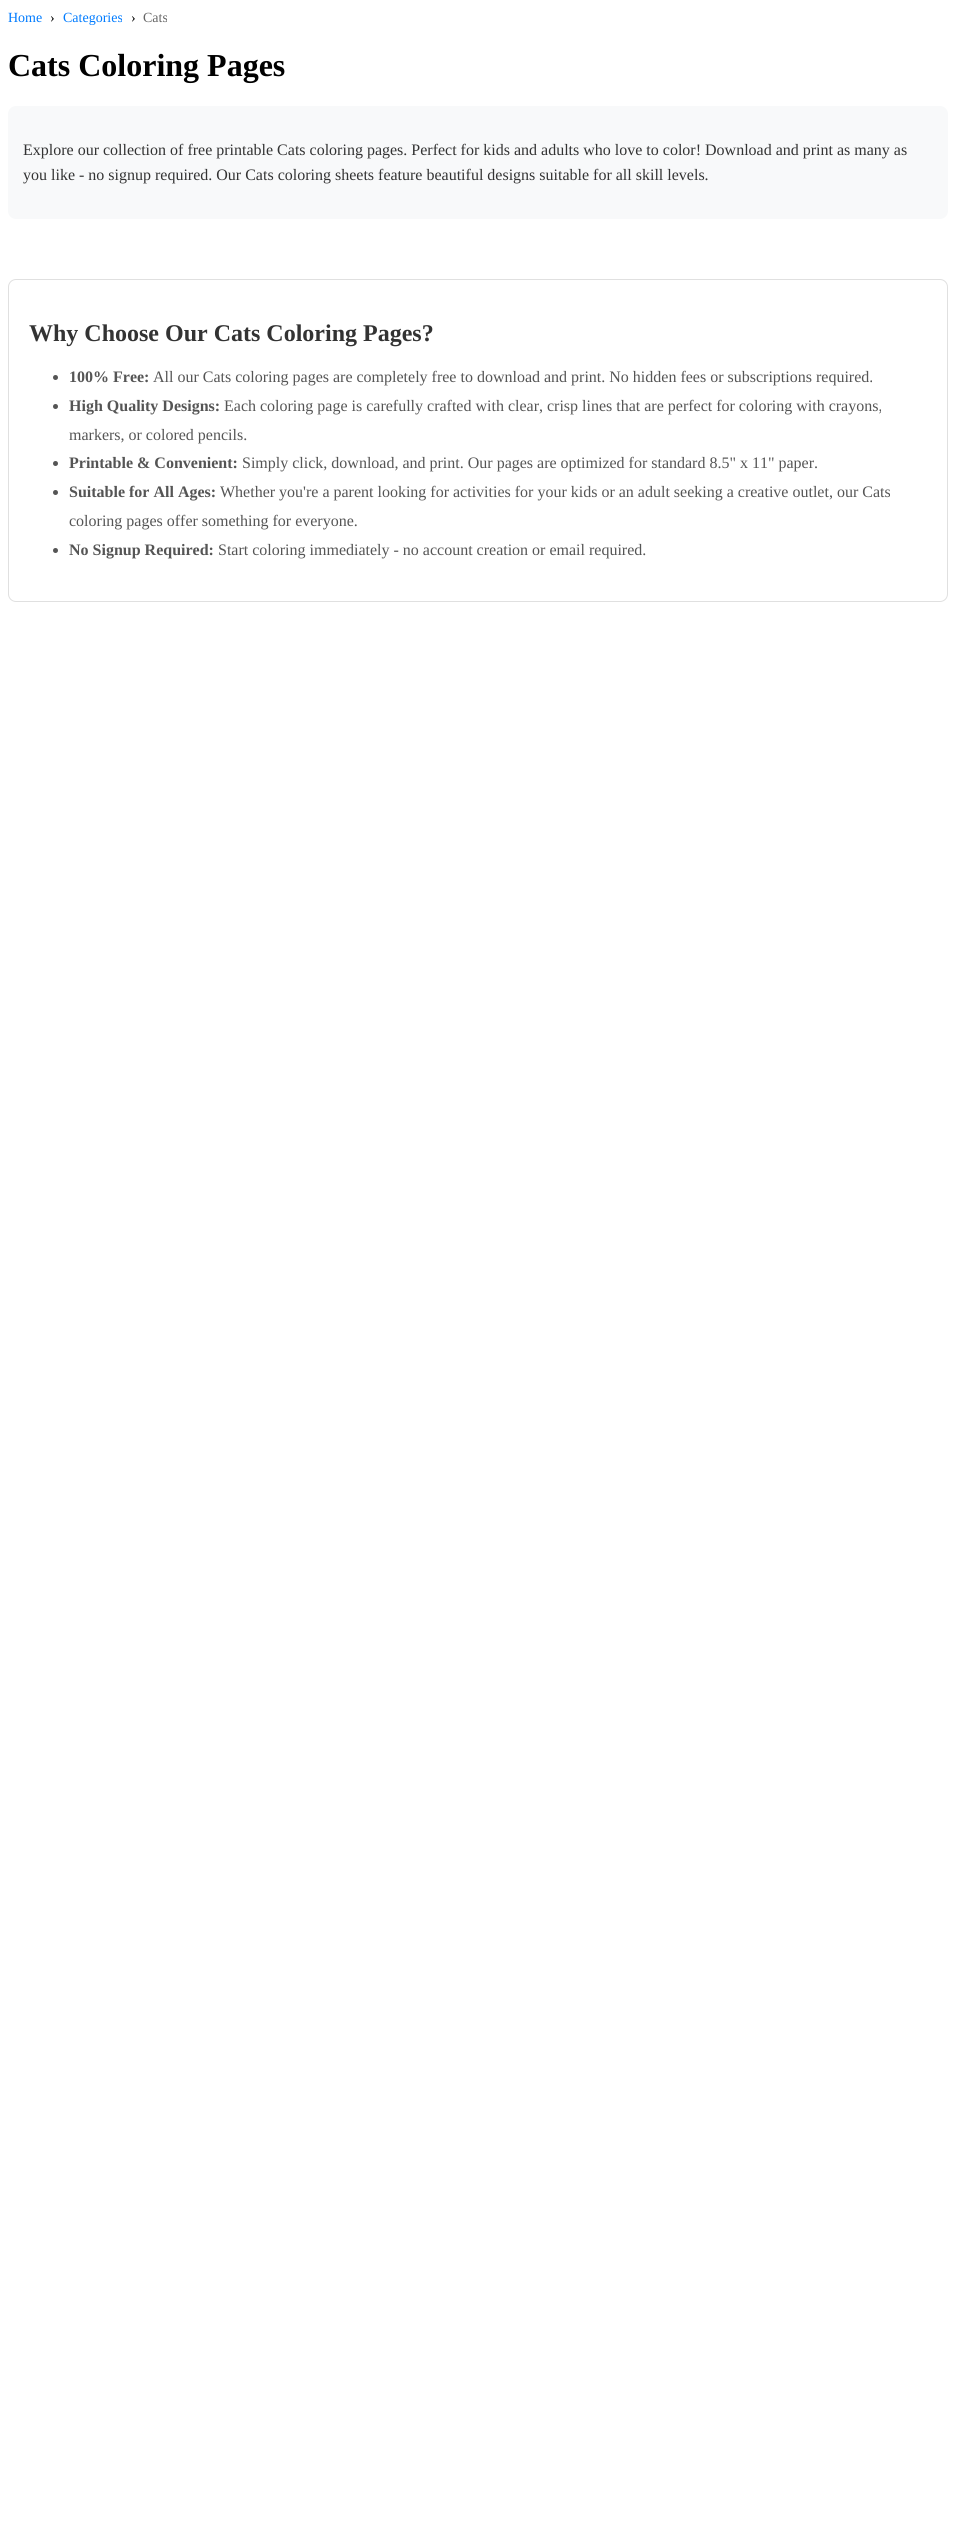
#include <cairo.h>
#include <math.h>
#include <stddef.h>

static cairo_t *ctx;

static void use_color(int r, int g, int b) {
    cairo_set_source_rgb(ctx, r / 255.0, g / 255.0, b / 255.0);
}

static void round_rect(double x, double y, double w, double h, double r) {
    cairo_new_sub_path(ctx);
    cairo_arc(ctx, x + w - r, y + h - r, r, 0, M_PI / 2);
    cairo_arc(ctx, x + r, y + h - r, r, M_PI / 2, M_PI);
    cairo_arc(ctx, x + r, y + r, r, M_PI, 1.5 * M_PI);
    cairo_arc(ctx, x + w - r, y + r, r, 1.5 * M_PI, 2 * M_PI);
    cairo_close_path(ctx);
}

int main(void) {
    cairo_surface_t *surface = cairo_image_surface_create(CAIRO_FORMAT_RGB24, 956, 2545);
    ctx = cairo_create(surface);
    cairo_font_options_t *options = cairo_font_options_create();
    cairo_font_options_set_hint_metrics(options, CAIRO_HINT_METRICS_OFF);
    cairo_font_options_set_hint_style(options, CAIRO_HINT_STYLE_NONE);
    cairo_set_font_options(ctx, options);
    cairo_set_miter_limit(ctx, 4);
    use_color(255, 255, 255);
    cairo_paint(ctx);
    cairo_select_font_face(ctx, "Liberation Serif", CAIRO_FONT_SLANT_NORMAL, CAIRO_FONT_WEIGHT_NORMAL);
    cairo_set_font_size(ctx, 14);
    use_color(0, 123, 255);
    cairo_move_to(ctx, 8, 22);
    cairo_show_text(ctx, "Home");
    use_color(0, 0, 0);
    cairo_move_to(ctx, 50, 22);
    cairo_show_text(ctx, "›");
    use_color(0, 123, 255);
    cairo_move_to(ctx, 63, 22);
    cairo_show_text(ctx, "Categories");
    use_color(0, 0, 0);
    cairo_move_to(ctx, 131, 22);
    cairo_show_text(ctx, "›");
    use_color(102, 102, 102);
    cairo_move_to(ctx, 143, 22);
    cairo_show_text(ctx, "Cats");
    cairo_select_font_face(ctx, "Liberation Serif", CAIRO_FONT_SLANT_NORMAL, CAIRO_FONT_WEIGHT_BOLD);
    cairo_set_font_size(ctx, 32);
    use_color(0, 0, 0);
    cairo_move_to(ctx, 8, 76);
    cairo_show_text(ctx, "Cats Coloring Pages");
    use_color(248, 249, 250);
    round_rect(8, 106, 940, 113, 8);
    cairo_fill(ctx);
    cairo_select_font_face(ctx, "Liberation Serif", CAIRO_FONT_SLANT_NORMAL, CAIRO_FONT_WEIGHT_NORMAL);
    cairo_set_font_size(ctx, 16);
    use_color(51, 51, 51);
    cairo_move_to(ctx, 23, 155);
    cairo_show_text(ctx, "Explore our collection of free printable Cats coloring pages. Perfect for kids and adults who love to color! Download and print as many as");
    cairo_move_to(ctx, 23, 180);
    cairo_show_text(ctx, "you like - no signup required. Our Cats coloring sheets feature beautiful designs suitable for all skill levels.");
    round_rect(8.5, 279.5, 939, 322, 7.5);
    use_color(224, 224, 224);
    cairo_set_line_width(ctx, 1);
    cairo_stroke(ctx);
    cairo_select_font_face(ctx, "Liberation Serif", CAIRO_FONT_SLANT_NORMAL, CAIRO_FONT_WEIGHT_BOLD);
    cairo_set_font_size(ctx, 24);
    use_color(51, 51, 51);
    cairo_move_to(ctx, 29, 341);
    cairo_show_text(ctx, "Why Choose Our Cats Coloring Pages?");
    use_color(85, 85, 85);
    cairo_new_path(ctx);
    cairo_arc(ctx, 55.5, 377.5, 2.5, 0, 2 * M_PI);
    cairo_fill(ctx);
    cairo_set_font_size(ctx, 16);
    cairo_move_to(ctx, 69, 382);
    cairo_show_text(ctx, "100% Free:");
    cairo_select_font_face(ctx, "Liberation Serif", CAIRO_FONT_SLANT_NORMAL, CAIRO_FONT_WEIGHT_NORMAL);
    cairo_move_to(ctx, 153, 382);
    cairo_show_text(ctx, "All our Cats coloring pages are completely free to download and print. No hidden fees or subscriptions required.");
    cairo_new_path(ctx);
    cairo_arc(ctx, 55.5, 406.5, 2.5, 0, 2 * M_PI);
    cairo_fill(ctx);
    cairo_select_font_face(ctx, "Liberation Serif", CAIRO_FONT_SLANT_NORMAL, CAIRO_FONT_WEIGHT_BOLD);
    cairo_move_to(ctx, 69, 411);
    cairo_show_text(ctx, "High Quality Designs:");
    cairo_select_font_face(ctx, "Liberation Serif", CAIRO_FONT_SLANT_NORMAL, CAIRO_FONT_WEIGHT_NORMAL);
    cairo_move_to(ctx, 224, 411);
    cairo_show_text(ctx, "Each coloring page is carefully crafted with clear, crisp lines that are perfect for coloring with crayons,");
    cairo_move_to(ctx, 69, 440);
    cairo_show_text(ctx, "markers, or colored pencils.");
    cairo_new_path(ctx);
    cairo_arc(ctx, 55.5, 463.5, 2.5, 0, 2 * M_PI);
    cairo_fill(ctx);
    cairo_select_font_face(ctx, "Liberation Serif", CAIRO_FONT_SLANT_NORMAL, CAIRO_FONT_WEIGHT_BOLD);
    cairo_move_to(ctx, 69, 468);
    cairo_show_text(ctx, "Printable & Convenient:");
    cairo_select_font_face(ctx, "Liberation Serif", CAIRO_FONT_SLANT_NORMAL, CAIRO_FONT_WEIGHT_NORMAL);
    cairo_move_to(ctx, 242, 468);
    cairo_show_text(ctx, "Simply click, download, and print. Our pages are optimized for standard 8.5\" x 11\" paper.");
    cairo_new_path(ctx);
    cairo_arc(ctx, 55.5, 492.5, 2.5, 0, 2 * M_PI);
    cairo_fill(ctx);
    cairo_select_font_face(ctx, "Liberation Serif", CAIRO_FONT_SLANT_NORMAL, CAIRO_FONT_WEIGHT_BOLD);
    cairo_move_to(ctx, 69, 497);
    cairo_show_text(ctx, "Suitable for All Ages:");
    cairo_select_font_face(ctx, "Liberation Serif", CAIRO_FONT_SLANT_NORMAL, CAIRO_FONT_WEIGHT_NORMAL);
    cairo_move_to(ctx, 220, 497);
    cairo_show_text(ctx, "Whether you're a parent looking for activities for your kids or an adult seeking a creative outlet, our Cats");
    cairo_move_to(ctx, 69, 526);
    cairo_show_text(ctx, "coloring pages offer something for everyone.");
    cairo_new_path(ctx);
    cairo_arc(ctx, 55.5, 550.5, 2.5, 0, 2 * M_PI);
    cairo_fill(ctx);
    cairo_select_font_face(ctx, "Liberation Serif", CAIRO_FONT_SLANT_NORMAL, CAIRO_FONT_WEIGHT_BOLD);
    cairo_move_to(ctx, 69, 555);
    cairo_show_text(ctx, "No Signup Required:");
    cairo_select_font_face(ctx, "Liberation Serif", CAIRO_FONT_SLANT_NORMAL, CAIRO_FONT_WEIGHT_NORMAL);
    cairo_move_to(ctx, 218, 555);
    cairo_show_text(ctx, "Start coloring immediately - no account creation or email required.");
    cairo_surface_write_to_png(surface, "result.png");
    cairo_font_options_destroy(options);
    cairo_destroy(ctx);
    cairo_surface_destroy(surface);
    return 0;
}
